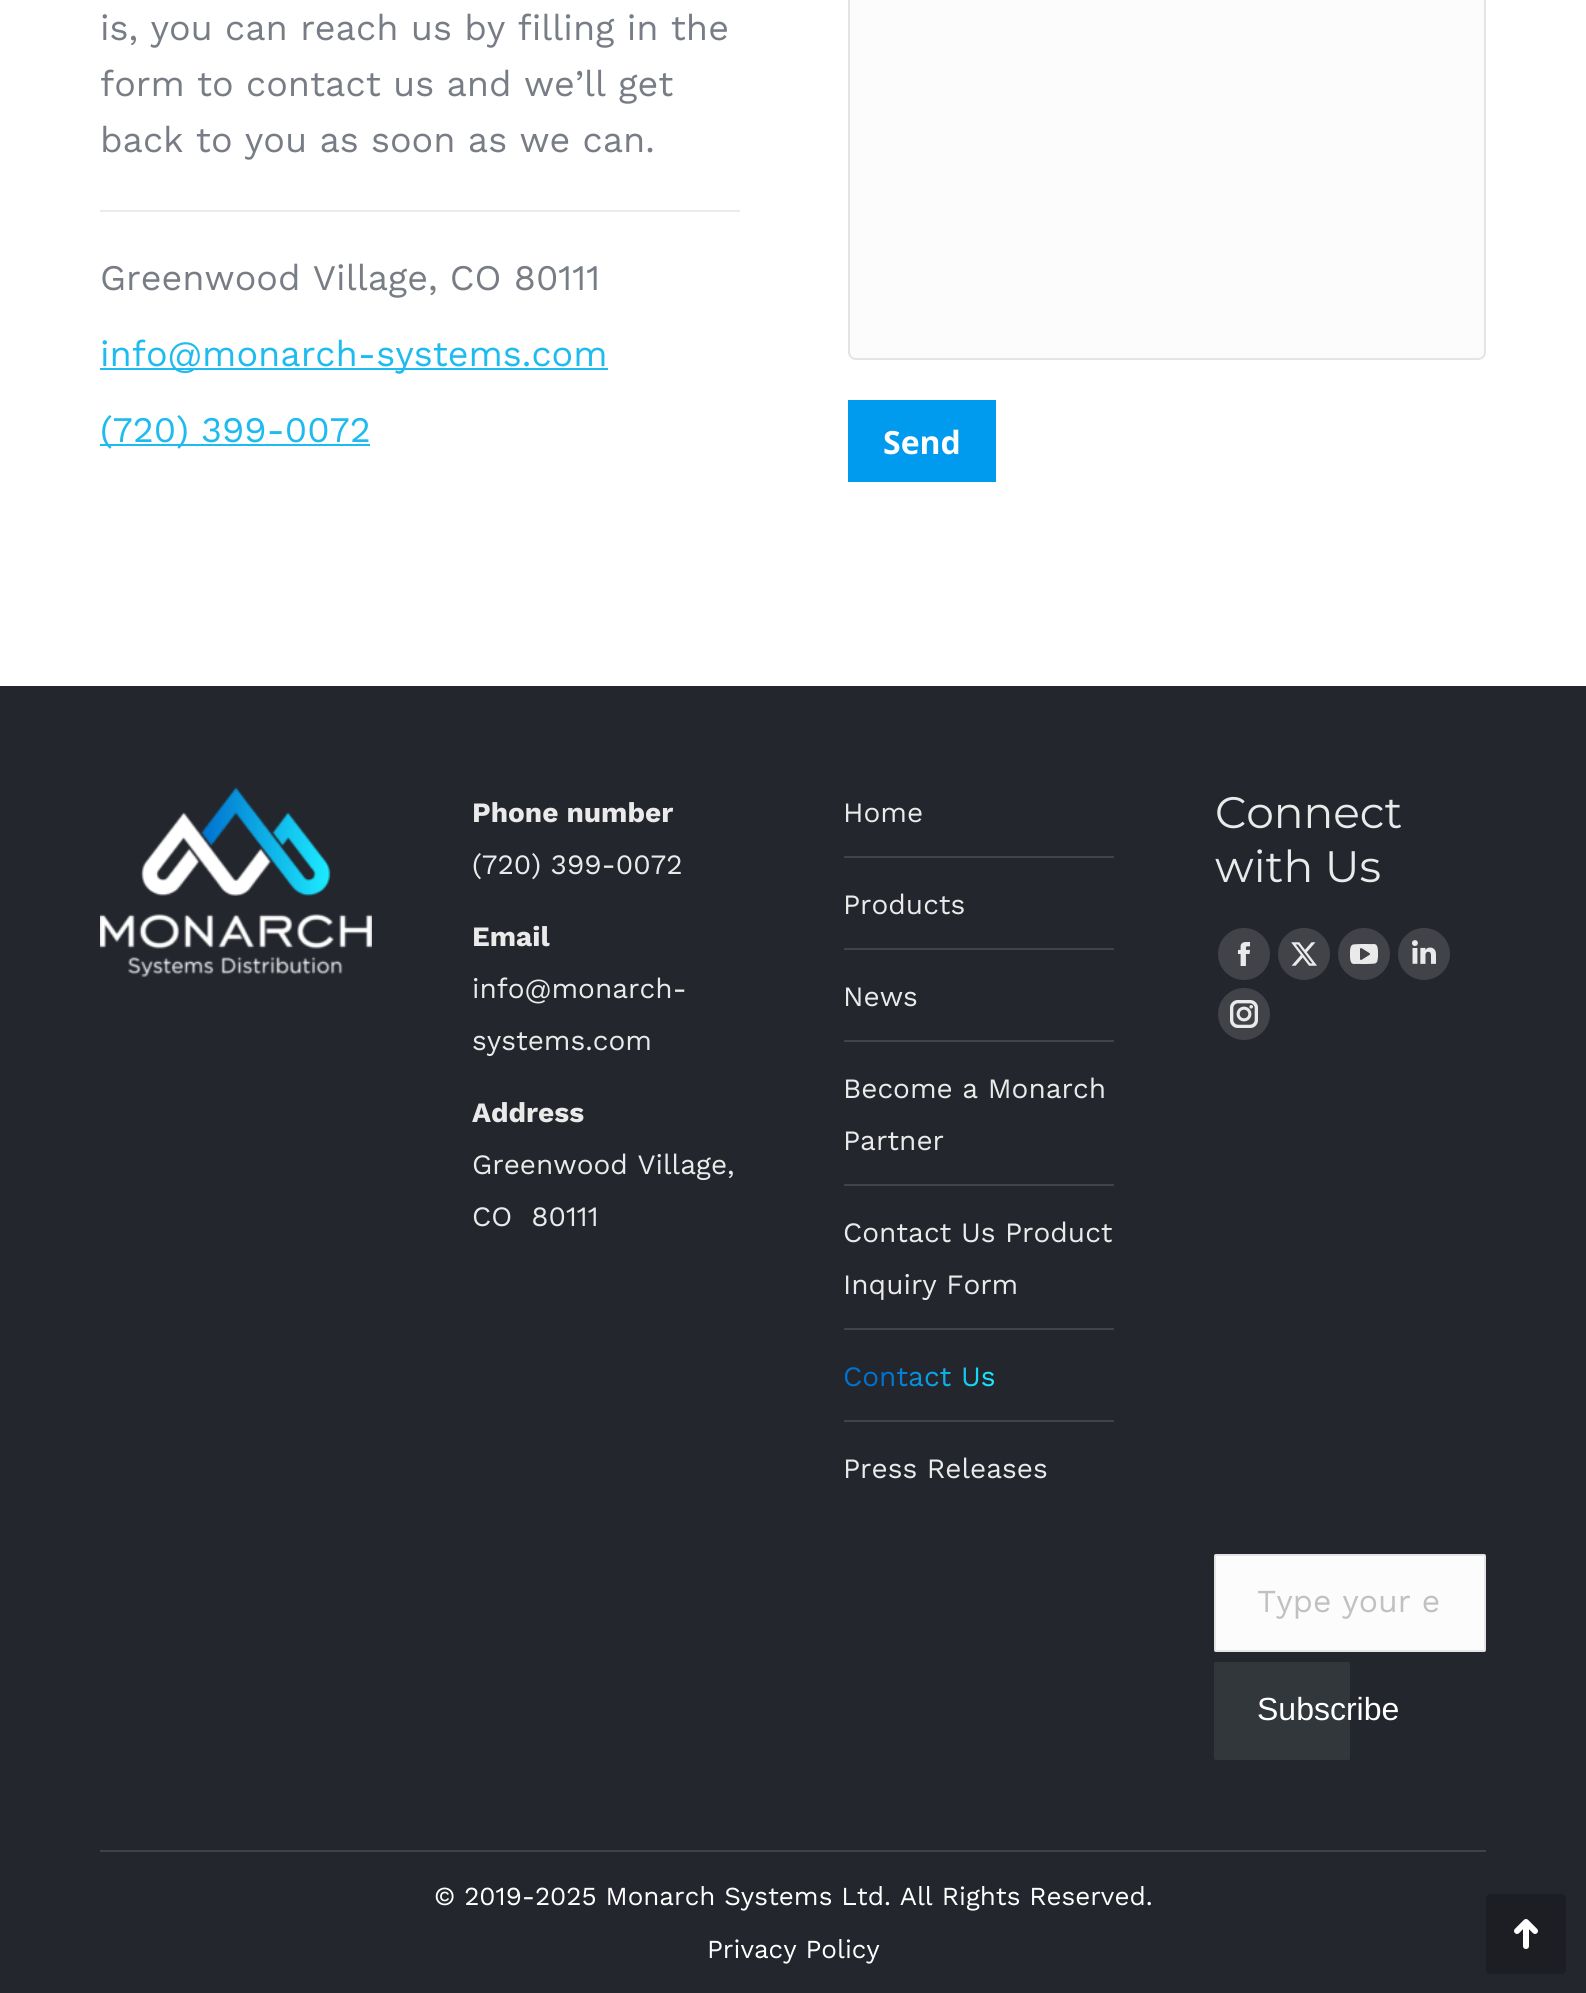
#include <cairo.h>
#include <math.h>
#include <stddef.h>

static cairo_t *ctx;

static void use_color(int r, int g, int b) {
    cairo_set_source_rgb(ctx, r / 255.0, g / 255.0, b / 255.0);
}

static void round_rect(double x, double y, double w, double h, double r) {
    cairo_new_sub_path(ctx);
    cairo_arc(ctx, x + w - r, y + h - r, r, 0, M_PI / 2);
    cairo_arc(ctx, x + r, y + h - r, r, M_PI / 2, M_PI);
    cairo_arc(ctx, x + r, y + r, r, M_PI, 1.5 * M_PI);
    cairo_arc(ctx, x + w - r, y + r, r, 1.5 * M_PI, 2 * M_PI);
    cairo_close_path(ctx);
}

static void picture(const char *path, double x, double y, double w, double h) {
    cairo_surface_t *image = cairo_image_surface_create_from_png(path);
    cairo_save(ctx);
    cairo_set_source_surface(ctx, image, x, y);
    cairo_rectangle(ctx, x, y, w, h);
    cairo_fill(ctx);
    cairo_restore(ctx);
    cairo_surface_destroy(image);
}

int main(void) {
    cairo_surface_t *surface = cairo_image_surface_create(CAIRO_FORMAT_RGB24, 1586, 1993);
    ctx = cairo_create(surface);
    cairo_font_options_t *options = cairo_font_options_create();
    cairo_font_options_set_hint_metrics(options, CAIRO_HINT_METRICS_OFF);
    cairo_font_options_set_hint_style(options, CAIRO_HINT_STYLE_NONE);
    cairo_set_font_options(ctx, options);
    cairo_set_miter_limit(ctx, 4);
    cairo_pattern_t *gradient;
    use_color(255, 255, 255);
    cairo_paint(ctx);
    cairo_select_font_face(ctx, "Work Sans", CAIRO_FONT_SLANT_NORMAL, CAIRO_FONT_WEIGHT_NORMAL);
    cairo_set_font_size(ctx, 36);
    use_color(120, 125, 133);
    cairo_move_to(ctx, 100, 40);
    cairo_show_text(ctx, "is, you can reach us by filling in the");
    cairo_move_to(ctx, 100, 96);
    cairo_show_text(ctx, "form to contact us and we’ll get");
    cairo_move_to(ctx, 100, 152);
    cairo_show_text(ctx, "back to you as soon as we can.");
    use_color(235, 235, 235);
    cairo_rectangle(ctx, 100, 210, 640, 2);
    cairo_fill(ctx);
    use_color(120, 125, 133);
    cairo_move_to(ctx, 100, 290);
    cairo_show_text(ctx, "Greenwood Village, CO 80111");
    use_color(30, 187, 240);
    cairo_rectangle(ctx, 100, 368, 508, 2);
    cairo_fill(ctx);
    cairo_move_to(ctx, 100, 366);
    cairo_show_text(ctx, "info@monarch-systems.com");
    cairo_rectangle(ctx, 100, 444, 270, 2);
    cairo_fill(ctx);
    cairo_move_to(ctx, 100, 442);
    cairo_show_text(ctx, "(720) 399-0072");
    use_color(252, 252, 252);
    round_rect(849, -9, 636, 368, 7);
    cairo_fill_preserve(ctx);
    use_color(228, 228, 228);
    cairo_stroke(ctx);
    use_color(0, 154, 238);
    cairo_rectangle(ctx, 848, 400, 148, 82);
    cairo_fill(ctx);
    cairo_select_font_face(ctx, "Open Sans", CAIRO_FONT_SLANT_NORMAL, CAIRO_FONT_WEIGHT_BOLD);
    cairo_set_font_size(ctx, 32);
    use_color(255, 255, 255);
    cairo_move_to(ctx, 883, 454);
    cairo_show_text(ctx, "Send");
    use_color(35, 38, 45);
    cairo_rectangle(ctx, 0, 686, 1586, 1307);
    cairo_fill(ctx);
    picture("img1.png", 100, 787, 272, 191);
    cairo_select_font_face(ctx, "Work Sans", CAIRO_FONT_SLANT_NORMAL, CAIRO_FONT_WEIGHT_BOLD);
    cairo_set_font_size(ctx, 28);
    use_color(234, 234, 234);
    cairo_move_to(ctx, 472, 822);
    cairo_show_text(ctx, "Phone number");
    cairo_select_font_face(ctx, "Work Sans", CAIRO_FONT_SLANT_NORMAL, CAIRO_FONT_WEIGHT_NORMAL);
    cairo_move_to(ctx, 472, 874);
    cairo_show_text(ctx, "(720) 399-0072");
    cairo_select_font_face(ctx, "Work Sans", CAIRO_FONT_SLANT_NORMAL, CAIRO_FONT_WEIGHT_BOLD);
    cairo_move_to(ctx, 472, 946);
    cairo_show_text(ctx, "Email");
    cairo_select_font_face(ctx, "Work Sans", CAIRO_FONT_SLANT_NORMAL, CAIRO_FONT_WEIGHT_NORMAL);
    cairo_move_to(ctx, 472, 998);
    cairo_show_text(ctx, "info@monarch-");
    cairo_move_to(ctx, 472, 1050);
    cairo_show_text(ctx, "systems.com");
    cairo_select_font_face(ctx, "Work Sans", CAIRO_FONT_SLANT_NORMAL, CAIRO_FONT_WEIGHT_BOLD);
    cairo_move_to(ctx, 472, 1122);
    cairo_show_text(ctx, "Address");
    cairo_select_font_face(ctx, "Work Sans", CAIRO_FONT_SLANT_NORMAL, CAIRO_FONT_WEIGHT_NORMAL);
    cairo_move_to(ctx, 472, 1174);
    cairo_show_text(ctx, "Greenwood Village,");
    cairo_move_to(ctx, 472, 1226);
    cairo_show_text(ctx, "CO  80111");
    cairo_move_to(ctx, 843, 822);
    cairo_show_text(ctx, "Home");
    use_color(65, 67, 73);
    cairo_rectangle(ctx, 844, 856, 270, 2);
    cairo_fill(ctx);
    use_color(234, 234, 234);
    cairo_move_to(ctx, 843, 914);
    cairo_show_text(ctx, "Products");
    use_color(65, 67, 73);
    cairo_rectangle(ctx, 844, 948, 270, 2);
    cairo_fill(ctx);
    use_color(234, 234, 234);
    cairo_move_to(ctx, 843, 1006);
    cairo_show_text(ctx, "News");
    use_color(65, 67, 73);
    cairo_rectangle(ctx, 844, 1040, 270, 2);
    cairo_fill(ctx);
    use_color(234, 234, 234);
    cairo_move_to(ctx, 843, 1098);
    cairo_show_text(ctx, "Become a Monarch");
    cairo_move_to(ctx, 843, 1150);
    cairo_show_text(ctx, "Partner");
    use_color(65, 67, 73);
    cairo_rectangle(ctx, 844, 1184, 270, 2);
    cairo_fill(ctx);
    use_color(234, 234, 234);
    cairo_move_to(ctx, 843, 1242);
    cairo_show_text(ctx, "Contact Us Product");
    cairo_move_to(ctx, 843, 1294);
    cairo_show_text(ctx, "Inquiry Form");
    use_color(65, 67, 73);
    cairo_rectangle(ctx, 844, 1328, 270, 2);
    cairo_fill(ctx);
    gradient = cairo_pattern_create_linear(843, 1376, 995, 1376);
    cairo_pattern_add_color_stop_rgba(gradient, 0.3, 0, 0.443, 0.808, 1);
    cairo_pattern_add_color_stop_rgba(gradient, 1, 0.11, 0.925, 1, 1);
    cairo_set_source(ctx, gradient);
    cairo_pattern_destroy(gradient);
    cairo_move_to(ctx, 843, 1386);
    cairo_show_text(ctx, "Contact Us");
    use_color(65, 67, 73);
    cairo_rectangle(ctx, 844, 1420, 270, 2);
    cairo_fill(ctx);
    use_color(234, 234, 234);
    cairo_move_to(ctx, 843, 1478);
    cairo_show_text(ctx, "Press Releases");
    cairo_select_font_face(ctx, "Montserrat", CAIRO_FONT_SLANT_NORMAL, CAIRO_FONT_WEIGHT_NORMAL);
    cairo_set_font_size(ctx, 44);
    cairo_move_to(ctx, 1215, 828);
    cairo_show_text(ctx, "Connect");
    cairo_move_to(ctx, 1215, 882);
    cairo_show_text(ctx, "with Us");
    use_color(65, 67, 73);
    cairo_new_path(ctx);
    cairo_arc(ctx, 1244, 954, 26, 0, 2 * M_PI);
    cairo_fill(ctx);
    picture("img2.png", 1237, 942, 14, 24);
    cairo_arc(ctx, 1304, 954, 26, 0, 2 * M_PI);
    cairo_fill(ctx);
    picture("img3.png", 1291, 942, 26, 24);
    cairo_arc(ctx, 1364, 954, 26, 0, 2 * M_PI);
    cairo_fill(ctx);
    picture("img4.png", 1350, 944, 28, 20);
    cairo_arc(ctx, 1424, 954, 26, 0, 2 * M_PI);
    cairo_fill(ctx);
    picture("img5.png", 1412, 940, 24, 24);
    cairo_arc(ctx, 1244, 1014, 26, 0, 2 * M_PI);
    cairo_fill(ctx);
    picture("img6.png", 1230, 1000, 28, 28);
    use_color(252, 252, 252);
    round_rect(1214, 1554, 272, 98, 2);
    cairo_fill(ctx);
    round_rect(1215, 1555, 270, 96, 1);
    cairo_set_source_rgba(ctx, 0.2, 0.2, 0.2, 0.12);
    cairo_stroke(ctx);
    cairo_select_font_face(ctx, "Work Sans", CAIRO_FONT_SLANT_NORMAL, CAIRO_FONT_WEIGHT_NORMAL);
    cairo_set_font_size(ctx, 32);
    use_color(193, 193, 196);
    cairo_move_to(ctx, 1257, 1612);
    cairo_show_text(ctx, "Type your e");
    use_color(50, 55, 60);
    round_rect(1214, 1662, 136, 98, 2);
    cairo_fill(ctx);
    cairo_select_font_face(ctx, "Liberation Sans", CAIRO_FONT_SLANT_NORMAL, CAIRO_FONT_WEIGHT_NORMAL);
    use_color(255, 255, 255);
    cairo_move_to(ctx, 1257, 1720);
    cairo_show_text(ctx, "Subscribe");
    use_color(64, 66, 72);
    cairo_rectangle(ctx, 100, 1850, 1386, 2);
    cairo_fill(ctx);
    cairo_select_font_face(ctx, "Work Sans", CAIRO_FONT_SLANT_NORMAL, CAIRO_FONT_WEIGHT_NORMAL);
    cairo_set_font_size(ctx, 26);
    use_color(255, 255, 255);
    cairo_move_to(ctx, 434, 1905);
    cairo_show_text(ctx, "© 2019-2025 Monarch Systems Ltd. All Rights Reserved.");
    cairo_move_to(ctx, 707, 1958);
    cairo_show_text(ctx, "Privacy Policy");
    use_color(28, 30, 36);
    round_rect(1486, 1894, 80, 80, 4);
    cairo_fill(ctx);
    picture("img7.png", 1514, 1919, 24, 30);
    cairo_surface_write_to_png(surface, "result.png");
    cairo_font_options_destroy(options);
    cairo_destroy(ctx);
    cairo_surface_destroy(surface);
    return 0;
}
